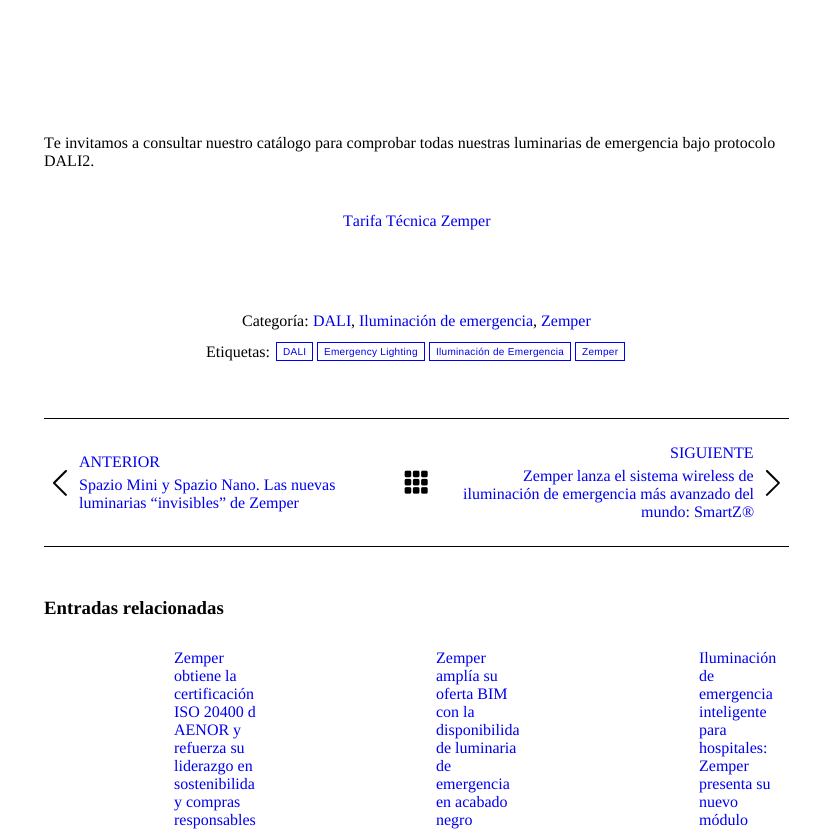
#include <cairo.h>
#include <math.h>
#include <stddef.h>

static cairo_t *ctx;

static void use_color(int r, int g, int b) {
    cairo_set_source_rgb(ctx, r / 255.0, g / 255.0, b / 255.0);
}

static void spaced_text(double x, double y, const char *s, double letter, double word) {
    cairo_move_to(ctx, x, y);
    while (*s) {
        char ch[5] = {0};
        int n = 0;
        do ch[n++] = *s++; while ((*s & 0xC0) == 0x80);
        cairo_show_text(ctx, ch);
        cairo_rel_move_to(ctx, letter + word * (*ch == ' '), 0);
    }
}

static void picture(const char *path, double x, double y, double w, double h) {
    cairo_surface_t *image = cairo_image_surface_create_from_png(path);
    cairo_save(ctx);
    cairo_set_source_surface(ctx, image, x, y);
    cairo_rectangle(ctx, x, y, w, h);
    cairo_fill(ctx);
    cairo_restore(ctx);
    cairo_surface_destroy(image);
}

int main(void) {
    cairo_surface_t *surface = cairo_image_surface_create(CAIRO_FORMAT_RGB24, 833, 838);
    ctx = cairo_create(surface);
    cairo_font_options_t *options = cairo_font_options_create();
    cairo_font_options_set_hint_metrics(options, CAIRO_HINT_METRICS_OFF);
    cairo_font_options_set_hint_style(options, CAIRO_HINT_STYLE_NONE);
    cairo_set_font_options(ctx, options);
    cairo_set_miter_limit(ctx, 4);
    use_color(255, 255, 255);
    cairo_paint(ctx);
    cairo_select_font_face(ctx, "Liberation Serif", CAIRO_FONT_SLANT_NORMAL, CAIRO_FONT_WEIGHT_NORMAL);
    cairo_set_font_size(ctx, 16);
    use_color(0, 0, 0);
    cairo_move_to(ctx, 44, 148);
    cairo_show_text(ctx, "Te invitamos a consultar nuestro catálogo para comprobar todas nuestras luminarias de emergencia bajo protocolo");
    cairo_move_to(ctx, 44, 166);
    cairo_show_text(ctx, "DALI2.");
    use_color(0, 0, 238);
    cairo_move_to(ctx, 343, 226);
    cairo_show_text(ctx, "Tarifa Técnica Zemper");
    use_color(0, 0, 0);
    cairo_move_to(ctx, 242, 326);
    cairo_show_text(ctx, "Categoría:");
    use_color(0, 0, 238);
    cairo_move_to(ctx, 313, 326);
    cairo_show_text(ctx, "DALI");
    use_color(0, 0, 0);
    cairo_move_to(ctx, 351, 326);
    cairo_show_text(ctx, ",");
    use_color(0, 0, 238);
    cairo_move_to(ctx, 359, 326);
    cairo_show_text(ctx, "Iluminación de emergencia");
    use_color(0, 0, 0);
    cairo_move_to(ctx, 533, 326);
    cairo_show_text(ctx, ",");
    use_color(0, 0, 238);
    cairo_move_to(ctx, 541, 326);
    cairo_show_text(ctx, "Zemper");
    use_color(0, 0, 0);
    cairo_move_to(ctx, 206, 357);
    cairo_show_text(ctx, "Etiquetas:");
    cairo_rectangle(ctx, 276.5, 342.5, 36, 18);
    use_color(0, 0, 238);
    cairo_set_line_width(ctx, 1);
    cairo_stroke(ctx);
    cairo_select_font_face(ctx, "Liberation Sans", CAIRO_FONT_SLANT_NORMAL, CAIRO_FONT_WEIGHT_NORMAL);
    cairo_set_font_size(ctx, 10);
    spaced_text(283, 355, "DALI", 0.3, 0);
    cairo_rectangle(ctx, 317.5, 342.5, 107, 18);
    cairo_stroke(ctx);
    spaced_text(324, 355, "Emergency Lighting", 0.3, 0);
    cairo_rectangle(ctx, 429.5, 342.5, 141, 18);
    cairo_stroke(ctx);
    spaced_text(436, 355, "Iluminación de Emergencia", 0.3, 0);
    cairo_rectangle(ctx, 575.5, 342.5, 49, 18);
    cairo_stroke(ctx);
    spaced_text(582, 355, "Zemper", 0.3, 0);
    use_color(0, 0, 0);
    cairo_rectangle(ctx, 44, 418, 745, 1);
    cairo_fill(ctx);
    cairo_rectangle(ctx, 44, 546, 745, 1);
    cairo_fill(ctx);
    cairo_select_font_face(ctx, "Liberation Serif", CAIRO_FONT_SLANT_NORMAL, CAIRO_FONT_WEIGHT_NORMAL);
    cairo_set_font_size(ctx, 16);
    use_color(0, 0, 238);
    cairo_move_to(ctx, 79, 467);
    cairo_show_text(ctx, "ANTERIOR");
    picture("img1.png", 52, 470, 16, 26);
    cairo_move_to(ctx, 79, 490);
    cairo_show_text(ctx, "Spazio Mini y Spazio Nano. Las nuevas");
    cairo_move_to(ctx, 79, 508);
    cairo_show_text(ctx, "luminarias “invisibles” de Zemper");
    picture("img2.png", 404, 470, 24, 24);
    cairo_move_to(ctx, 670, 458);
    cairo_show_text(ctx, "SIGUIENTE");
    cairo_move_to(ctx, 523, 481);
    cairo_show_text(ctx, "Zemper lanza el sistema wireless de");
    cairo_move_to(ctx, 463, 499);
    cairo_show_text(ctx, "iluminación de emergencia más avanzado del");
    cairo_move_to(ctx, 641, 517);
    cairo_show_text(ctx, "mundo: SmartZ®");
    picture("img3.png", 765, 469, 15, 27);
    cairo_select_font_face(ctx, "Liberation Serif", CAIRO_FONT_SLANT_NORMAL, CAIRO_FONT_WEIGHT_BOLD);
    cairo_set_font_size(ctx, 18.75);
    use_color(0, 0, 0);
    cairo_move_to(ctx, 44, 614);
    cairo_show_text(ctx, "Entradas relacionadas");
    cairo_select_font_face(ctx, "Liberation Serif", CAIRO_FONT_SLANT_NORMAL, CAIRO_FONT_WEIGHT_NORMAL);
    cairo_set_font_size(ctx, 16);
    use_color(0, 0, 238);
    cairo_move_to(ctx, 174, 663);
    cairo_show_text(ctx, "Zemper");
    cairo_move_to(ctx, 174, 681);
    cairo_show_text(ctx, "obtiene la");
    cairo_move_to(ctx, 174, 699);
    cairo_show_text(ctx, "certificación");
    cairo_move_to(ctx, 174, 717);
    cairo_show_text(ctx, "ISO 20400 d");
    cairo_move_to(ctx, 174, 735);
    cairo_show_text(ctx, "AENOR y");
    cairo_move_to(ctx, 174, 753);
    cairo_show_text(ctx, "refuerza su");
    cairo_move_to(ctx, 174, 771);
    cairo_show_text(ctx, "liderazgo en");
    cairo_move_to(ctx, 174, 789);
    cairo_show_text(ctx, "sostenibilida");
    cairo_move_to(ctx, 174, 807);
    cairo_show_text(ctx, "y compras");
    cairo_move_to(ctx, 174, 825);
    cairo_show_text(ctx, "responsables");
    cairo_move_to(ctx, 436, 663);
    cairo_show_text(ctx, "Zemper");
    cairo_move_to(ctx, 436, 681);
    cairo_show_text(ctx, "amplía su");
    cairo_move_to(ctx, 436, 699);
    cairo_show_text(ctx, "oferta BIM");
    cairo_move_to(ctx, 436, 717);
    cairo_show_text(ctx, "con la");
    cairo_move_to(ctx, 436, 735);
    cairo_show_text(ctx, "disponibilida");
    cairo_move_to(ctx, 436, 753);
    cairo_show_text(ctx, "de luminaria");
    cairo_move_to(ctx, 436, 771);
    cairo_show_text(ctx, "de");
    cairo_move_to(ctx, 436, 789);
    cairo_show_text(ctx, "emergencia");
    cairo_move_to(ctx, 436, 807);
    cairo_show_text(ctx, "en acabado");
    cairo_move_to(ctx, 436, 825);
    cairo_show_text(ctx, "negro");
    cairo_move_to(ctx, 699, 663);
    cairo_show_text(ctx, "Iluminación");
    cairo_move_to(ctx, 699, 681);
    cairo_show_text(ctx, "de");
    cairo_move_to(ctx, 699, 699);
    cairo_show_text(ctx, "emergencia");
    cairo_move_to(ctx, 699, 717);
    cairo_show_text(ctx, "inteligente");
    cairo_move_to(ctx, 699, 735);
    cairo_show_text(ctx, "para");
    cairo_move_to(ctx, 699, 753);
    cairo_show_text(ctx, "hospitales:");
    cairo_move_to(ctx, 699, 771);
    cairo_show_text(ctx, "Zemper");
    cairo_move_to(ctx, 699, 789);
    cairo_show_text(ctx, "presenta su");
    cairo_move_to(ctx, 699, 807);
    cairo_show_text(ctx, "nuevo");
    cairo_move_to(ctx, 699, 825);
    cairo_show_text(ctx, "módulo");
    cairo_surface_write_to_png(surface, "result.png");
    cairo_font_options_destroy(options);
    cairo_destroy(ctx);
    cairo_surface_destroy(surface);
    return 0;
}
